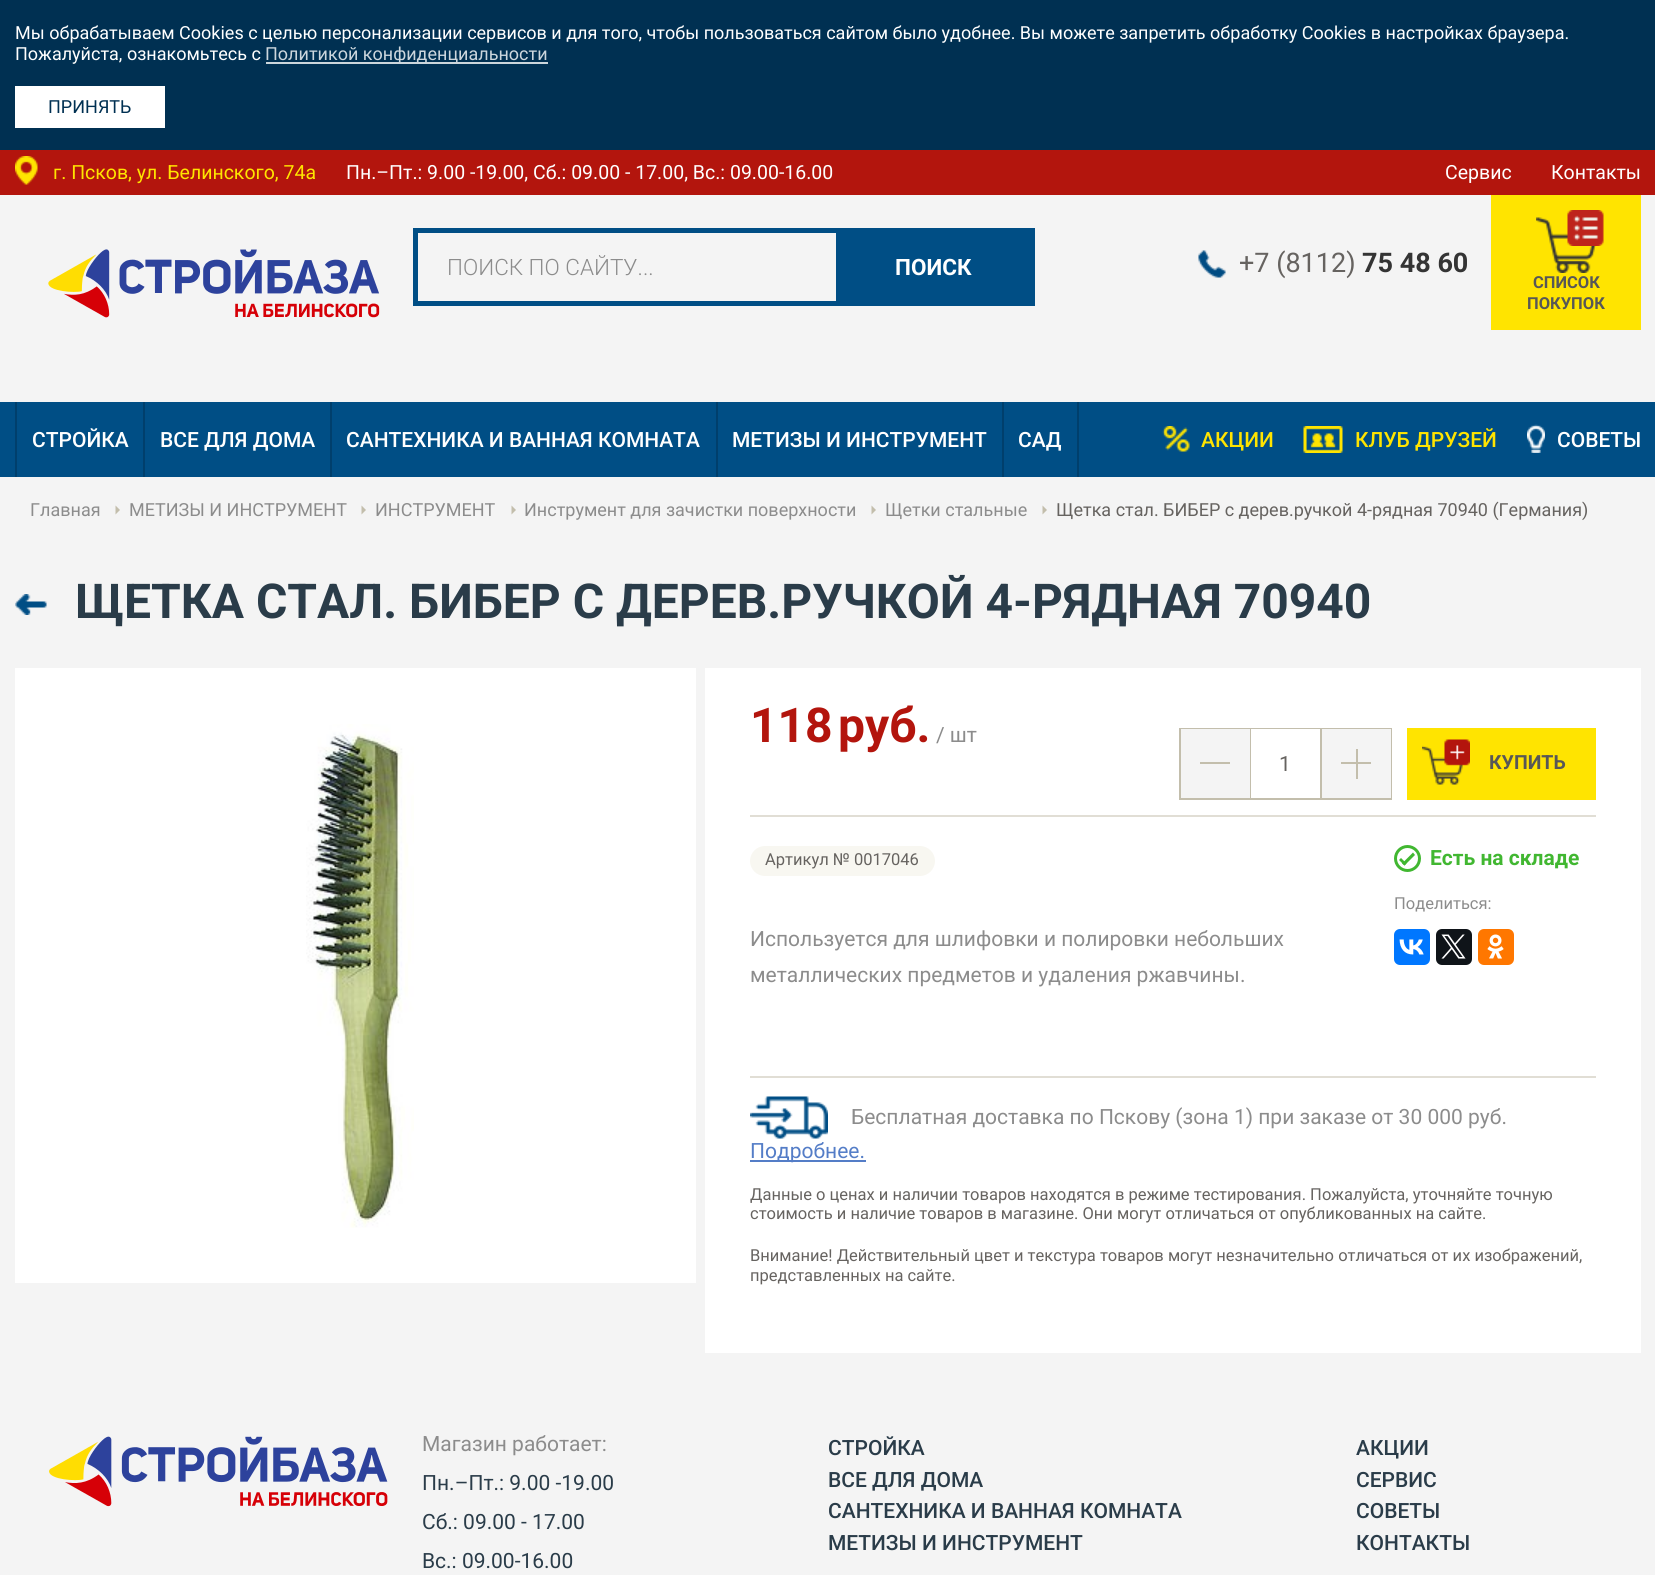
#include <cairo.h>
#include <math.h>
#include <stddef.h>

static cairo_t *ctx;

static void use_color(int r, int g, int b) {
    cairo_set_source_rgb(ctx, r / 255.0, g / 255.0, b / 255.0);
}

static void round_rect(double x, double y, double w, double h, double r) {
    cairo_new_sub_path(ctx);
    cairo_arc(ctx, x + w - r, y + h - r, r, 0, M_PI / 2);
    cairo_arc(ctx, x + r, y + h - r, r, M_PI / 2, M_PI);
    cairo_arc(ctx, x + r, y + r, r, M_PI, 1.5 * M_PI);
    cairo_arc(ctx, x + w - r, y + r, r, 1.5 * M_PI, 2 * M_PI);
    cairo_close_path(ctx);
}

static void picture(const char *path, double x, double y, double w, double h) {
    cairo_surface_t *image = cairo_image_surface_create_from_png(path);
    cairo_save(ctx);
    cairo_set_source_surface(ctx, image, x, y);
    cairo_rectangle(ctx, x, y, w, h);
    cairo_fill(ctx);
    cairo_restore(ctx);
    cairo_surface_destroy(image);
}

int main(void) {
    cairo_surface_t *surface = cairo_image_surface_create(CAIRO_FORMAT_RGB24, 1655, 1575);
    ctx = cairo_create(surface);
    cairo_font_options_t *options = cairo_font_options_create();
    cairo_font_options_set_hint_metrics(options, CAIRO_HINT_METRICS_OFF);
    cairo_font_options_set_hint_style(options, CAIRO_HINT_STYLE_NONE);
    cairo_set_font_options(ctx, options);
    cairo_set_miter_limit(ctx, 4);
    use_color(244, 244, 244);
    cairo_paint(ctx);
    use_color(0, 48, 82);
    cairo_rectangle(ctx, 0, 0, 1655, 150);
    cairo_fill(ctx);
    cairo_select_font_face(ctx, "Roboto", CAIRO_FONT_SLANT_NORMAL, CAIRO_FONT_WEIGHT_NORMAL);
    cairo_set_font_size(ctx, 18);
    use_color(255, 255, 255);
    cairo_move_to(ctx, 15, 39);
    cairo_show_text(ctx, "Мы обрабатываем Cookies с целью персонализации сервисов и для того, чтобы пользоваться сайтом было удобнее. Вы можете запретить обработку Cookies в настройках браузера.");
    cairo_move_to(ctx, 15, 60);
    cairo_show_text(ctx, "Пожалуйста, ознакомьтесь с");
    use_color(204, 214, 220);
    cairo_rectangle(ctx, 266, 62, 282, 2);
    cairo_fill(ctx);
    use_color(204, 214, 221);
    cairo_move_to(ctx, 265, 60);
    cairo_show_text(ctx, "Политикой конфиденциальности");
    use_color(255, 255, 255);
    cairo_rectangle(ctx, 15, 86, 150, 42);
    cairo_fill(ctx);
    use_color(0, 48, 82);
    cairo_move_to(ctx, 48, 113);
    cairo_show_text(ctx, "ПРИНЯТЬ");
    use_color(179, 21, 13);
    cairo_rectangle(ctx, 0, 150, 1655, 45);
    cairo_fill(ctx);
    picture("img1.png", 15, 156, 23, 29);
    cairo_set_font_size(ctx, 19.5);
    use_color(255, 228, 0);
    cairo_move_to(ctx, 53, 179);
    cairo_show_text(ctx, "г. Псков, ул. Белинского, 74а");
    use_color(255, 255, 255);
    cairo_move_to(ctx, 346, 179);
    cairo_show_text(ctx, "Пн.–Пт.: 9.00 -19.00, Сб.: 09.00 - 17.00, Вс.: 09.00-16.00");
    cairo_move_to(ctx, 1445, 179);
    cairo_show_text(ctx, "Сервис");
    cairo_move_to(ctx, 1551, 179);
    cairo_show_text(ctx, "Контакты");
    picture("img2.png", 48, 249, 332, 69);
    cairo_rectangle(ctx, 415.5, 230.5, 617, 73);
    use_color(0, 78, 133);
    cairo_set_line_width(ctx, 5);
    cairo_stroke(ctx);
    cairo_select_font_face(ctx, "Roboto Light", CAIRO_FONT_SLANT_NORMAL, CAIRO_FONT_WEIGHT_NORMAL);
    cairo_set_font_size(ctx, 22.5);
    use_color(140, 140, 140);
    cairo_move_to(ctx, 447, 275);
    cairo_show_text(ctx, "ПОИСК ПО САЙТУ...");
    use_color(0, 78, 133);
    cairo_rectangle(ctx, 836, 233, 194, 68);
    cairo_fill(ctx);
    cairo_select_font_face(ctx, "Roboto", CAIRO_FONT_SLANT_NORMAL, CAIRO_FONT_WEIGHT_BOLD);
    use_color(255, 255, 255);
    cairo_move_to(ctx, 895, 275);
    cairo_show_text(ctx, "ПОИСК");
    picture("img3.png", 1198, 250, 28, 28);
    cairo_select_font_face(ctx, "Roboto", CAIRO_FONT_SLANT_NORMAL, CAIRO_FONT_WEIGHT_NORMAL);
    cairo_set_font_size(ctx, 27);
    use_color(102, 99, 96);
    cairo_move_to(ctx, 1239, 272);
    cairo_show_text(ctx, "+7 (8112)");
    cairo_select_font_face(ctx, "Roboto", CAIRO_FONT_SLANT_NORMAL, CAIRO_FONT_WEIGHT_BOLD);
    use_color(52, 52, 52);
    cairo_move_to(ctx, 1362, 272);
    cairo_show_text(ctx, "75 48 60");
    use_color(255, 228, 0);
    cairo_rectangle(ctx, 1491, 195, 150, 135);
    cairo_fill(ctx);
    picture("img4.png", 1536, 217, 60, 56);
    picture("img5.png", 1567, 210, 37, 36);
    cairo_set_font_size(ctx, 16.5);
    use_color(87, 87, 87);
    cairo_move_to(ctx, 1533, 288);
    cairo_show_text(ctx, "СПИСОК");
    cairo_move_to(ctx, 1527, 309);
    cairo_show_text(ctx, "ПОКУПОК");
    use_color(0, 78, 133);
    cairo_rectangle(ctx, 0, 402, 1655, 75);
    cairo_fill(ctx);
    use_color(0, 63, 108);
    cairo_rectangle(ctx, 15, 402, 2, 75);
    cairo_fill(ctx);
    cairo_select_font_face(ctx, "Roboto Medium", CAIRO_FONT_SLANT_NORMAL, CAIRO_FONT_WEIGHT_NORMAL);
    cairo_set_font_size(ctx, 21);
    use_color(255, 255, 255);
    cairo_move_to(ctx, 32, 447);
    cairo_show_text(ctx, "СТРОЙКА");
    use_color(0, 63, 108);
    cairo_rectangle(ctx, 143, 402, 2, 75);
    cairo_fill(ctx);
    use_color(255, 255, 255);
    cairo_move_to(ctx, 160, 447);
    cairo_show_text(ctx, "ВСЕ ДЛЯ ДОМА");
    use_color(0, 63, 108);
    cairo_rectangle(ctx, 330, 402, 2, 75);
    cairo_fill(ctx);
    use_color(255, 255, 255);
    cairo_move_to(ctx, 346, 447);
    cairo_show_text(ctx, "САНТЕХНИКА И ВАННАЯ КОМНАТА");
    use_color(0, 63, 108);
    cairo_rectangle(ctx, 716, 402, 2, 75);
    cairo_fill(ctx);
    use_color(255, 255, 255);
    cairo_move_to(ctx, 732, 447);
    cairo_show_text(ctx, "МЕТИЗЫ И ИНСТРУМЕНТ");
    use_color(0, 63, 108);
    cairo_rectangle(ctx, 1077, 402, 2, 75);
    cairo_fill(ctx);
    cairo_rectangle(ctx, 1002, 402, 2, 75);
    cairo_fill(ctx);
    use_color(255, 255, 255);
    cairo_move_to(ctx, 1018, 447);
    cairo_show_text(ctx, "САД");
    picture("img6.png", 1162, 426, 28, 26);
    use_color(255, 228, 0);
    cairo_move_to(ctx, 1201, 447);
    cairo_show_text(ctx, "АКЦИИ");
    picture("img7.png", 1303, 426, 40, 27);
    cairo_move_to(ctx, 1355, 447);
    cairo_show_text(ctx, "КЛУБ ДРУЗЕЙ");
    picture("img8.png", 1527, 424, 18, 29);
    use_color(255, 255, 255);
    cairo_move_to(ctx, 1557, 447);
    cairo_show_text(ctx, "СОВЕТЫ");
    cairo_select_font_face(ctx, "Roboto", CAIRO_FONT_SLANT_NORMAL, CAIRO_FONT_WEIGHT_NORMAL);
    cairo_set_font_size(ctx, 18);
    use_color(140, 140, 140);
    cairo_move_to(ctx, 30, 516);
    cairo_show_text(ctx, "Главная");
    use_color(195, 190, 172);
    cairo_new_path(ctx);
    cairo_move_to(ctx, 115.5, 514.5);
    cairo_line_to(ctx, 115.5, 505.5);
    cairo_line_to(ctx, 120, 510);
    cairo_close_path(ctx);
    cairo_fill(ctx);
    use_color(140, 140, 140);
    cairo_move_to(ctx, 129, 516);
    cairo_show_text(ctx, "МЕТИЗЫ И ИНСТРУМЕНТ");
    use_color(195, 190, 172);
    cairo_new_path(ctx);
    cairo_move_to(ctx, 361.5, 514.5);
    cairo_line_to(ctx, 361.5, 505.5);
    cairo_line_to(ctx, 366, 510);
    cairo_close_path(ctx);
    cairo_fill(ctx);
    use_color(140, 140, 140);
    cairo_move_to(ctx, 375, 516);
    cairo_show_text(ctx, "ИНСТРУМЕНТ");
    use_color(195, 190, 172);
    cairo_new_path(ctx);
    cairo_move_to(ctx, 511.5, 514.5);
    cairo_line_to(ctx, 511.5, 505.5);
    cairo_line_to(ctx, 516, 510);
    cairo_close_path(ctx);
    cairo_fill(ctx);
    use_color(140, 140, 140);
    cairo_move_to(ctx, 524, 516);
    cairo_show_text(ctx, "Инструмент для зачистки поверхности");
    use_color(195, 190, 172);
    cairo_new_path(ctx);
    cairo_move_to(ctx, 871.5, 514.5);
    cairo_line_to(ctx, 871.5, 505.5);
    cairo_line_to(ctx, 876, 510);
    cairo_close_path(ctx);
    cairo_fill(ctx);
    use_color(140, 140, 140);
    cairo_move_to(ctx, 885, 516);
    cairo_show_text(ctx, "Щетки стальные");
    use_color(195, 190, 172);
    cairo_new_path(ctx);
    cairo_move_to(ctx, 1042.5, 514.5);
    cairo_line_to(ctx, 1042.5, 505.5);
    cairo_line_to(ctx, 1047, 510);
    cairo_close_path(ctx);
    cairo_fill(ctx);
    use_color(102, 99, 96);
    cairo_move_to(ctx, 1056, 516);
    cairo_show_text(ctx, "Щетка стал. БИБЕР с дерев.ручкой 4-рядная 70940 (Германия)");
    picture("img9.png", 15, 594, 32, 21);
    cairo_select_font_face(ctx, "Roboto", CAIRO_FONT_SLANT_NORMAL, CAIRO_FONT_WEIGHT_BOLD);
    cairo_set_font_size(ctx, 48);
    use_color(42, 60, 73);
    cairo_move_to(ctx, 75, 618);
    cairo_show_text(ctx, "ЩЕТКА СТАЛ. БИБЕР С ДЕРЕВ.РУЧКОЙ 4-РЯДНАЯ 70940");
    use_color(255, 255, 255);
    cairo_rectangle(ctx, 15, 668, 681, 615);
    cairo_fill(ctx);
    picture("img10.png", 306, 724, 108, 504);
    cairo_rectangle(ctx, 705, 668, 936, 685);
    cairo_fill(ctx);
    use_color(179, 21, 13);
    cairo_move_to(ctx, 750, 742);
    cairo_show_text(ctx, "118");
    cairo_move_to(ctx, 838, 742);
    cairo_show_text(ctx, "руб.");
    cairo_select_font_face(ctx, "Roboto", CAIRO_FONT_SLANT_NORMAL, CAIRO_FONT_WEIGHT_NORMAL);
    cairo_set_font_size(ctx, 21);
    use_color(140, 140, 140);
    cairo_move_to(ctx, 936, 742);
    cairo_show_text(ctx, "/ шт");
    cairo_rectangle(ctx, 1180, 729, 211, 70);
    use_color(195, 190, 172);
    cairo_set_line_width(ctx, 2);
    cairo_stroke(ctx);
    use_color(244, 244, 244);
    cairo_rectangle(ctx, 1181, 729, 69, 69);
    cairo_fill(ctx);
    use_color(195, 190, 172);
    cairo_rectangle(ctx, 1200, 762, 30, 2);
    cairo_fill(ctx);
    cairo_rectangle(ctx, 1320, 729, 2, 69);
    cairo_fill(ctx);
    cairo_rectangle(ctx, 1250, 729, 1, 69);
    cairo_fill(ctx);
    use_color(255, 255, 255);
    cairo_rectangle(ctx, 1251, 729, 69, 1);
    cairo_fill(ctx);
    use_color(102, 99, 96);
    cairo_move_to(ctx, 1279, 771);
    cairo_show_text(ctx, "1");
    use_color(244, 244, 244);
    cairo_rectangle(ctx, 1322, 729, 69, 69);
    cairo_fill(ctx);
    use_color(195, 190, 172);
    cairo_rectangle(ctx, 1341, 762, 30, 2);
    cairo_fill(ctx);
    cairo_rectangle(ctx, 1356, 749, 2, 30);
    cairo_fill(ctx);
    use_color(255, 228, 0);
    cairo_rectangle(ctx, 1407, 728, 189, 72);
    cairo_fill(ctx);
    picture("img11.png", 1422, 739, 48, 46);
    cairo_select_font_face(ctx, "Roboto", CAIRO_FONT_SLANT_NORMAL, CAIRO_FONT_WEIGHT_BOLD);
    cairo_set_font_size(ctx, 19.5);
    use_color(87, 87, 87);
    cairo_move_to(ctx, 1489, 769);
    cairo_show_text(ctx, "КУПИТЬ");
    use_color(225, 222, 213);
    cairo_rectangle(ctx, 750, 815, 846, 2);
    cairo_fill(ctx);
    use_color(248, 247, 241);
    round_rect(750, 846, 185, 30, 15);
    cairo_fill(ctx);
    cairo_select_font_face(ctx, "Roboto", CAIRO_FONT_SLANT_NORMAL, CAIRO_FONT_WEIGHT_NORMAL);
    cairo_set_font_size(ctx, 16.5);
    use_color(102, 99, 96);
    cairo_move_to(ctx, 765, 865);
    cairo_show_text(ctx, "Артикул № 0017046");
    cairo_set_font_size(ctx, 21);
    use_color(140, 140, 140);
    cairo_move_to(ctx, 750, 946);
    cairo_show_text(ctx, "Используется для шлифовки и полировки небольших");
    cairo_move_to(ctx, 750, 982);
    cairo_show_text(ctx, "металлических предметов и удаления ржавчины.");
    cairo_new_path(ctx);
    cairo_arc(ctx, 1407.5, 858.5, 12, 0, 2 * M_PI);
    use_color(65, 183, 49);
    cairo_set_line_width(ctx, 3);
    cairo_stroke(ctx);
    cairo_new_path(ctx);
    cairo_move_to(ctx, 1415, 855);
    cairo_line_to(ctx, 1404.5, 865.5);
    cairo_line_to(ctx, 1402, 863.5);
    cairo_line_to(ctx, 1413, 852.5);
    cairo_close_path(ctx);
    cairo_fill(ctx);
    cairo_new_path(ctx);
    cairo_move_to(ctx, 1406.5, 863.5);
    cairo_line_to(ctx, 1404.5, 865.5);
    cairo_line_to(ctx, 1399, 860);
    cairo_line_to(ctx, 1401, 858);
    cairo_close_path(ctx);
    cairo_fill(ctx);
    cairo_select_font_face(ctx, "Roboto", CAIRO_FONT_SLANT_NORMAL, CAIRO_FONT_WEIGHT_BOLD);
    cairo_move_to(ctx, 1430, 865);
    cairo_show_text(ctx, "Есть на складе");
    cairo_select_font_face(ctx, "Roboto", CAIRO_FONT_SLANT_NORMAL, CAIRO_FONT_WEIGHT_NORMAL);
    cairo_set_font_size(ctx, 16.5);
    use_color(140, 140, 140);
    cairo_move_to(ctx, 1394, 909);
    cairo_show_text(ctx, "Поделиться:");
    use_color(0, 119, 255);
    round_rect(1394, 929, 36, 36, 6);
    cairo_fill(ctx);
    picture("img12.png", 1399, 939, 25, 16);
    use_color(15, 20, 25);
    round_rect(1436, 929, 36, 36, 6);
    cairo_fill(ctx);
    picture("img13.png", 1441, 934, 25, 25);
    use_color(255, 119, 0);
    round_rect(1478, 929, 36, 36, 6);
    cairo_fill(ctx);
    picture("img14.png", 1487, 934, 17, 25);
    use_color(225, 222, 213);
    cairo_rectangle(ctx, 750, 1076, 846, 2);
    cairo_fill(ctx);
    picture("img15.png", 750, 1096, 78, 43);
    cairo_set_font_size(ctx, 21);
    use_color(140, 140, 140);
    cairo_move_to(ctx, 851, 1124);
    cairo_show_text(ctx, "Бесплатная доставка по Пскову (зона 1) при заказе от 30 000 руб.");
    use_color(84, 125, 199);
    cairo_rectangle(ctx, 750, 1160, 116, 2);
    cairo_fill(ctx);
    cairo_move_to(ctx, 750, 1158);
    cairo_show_text(ctx, "Подробнее.");
    cairo_set_font_size(ctx, 16.5);
    use_color(102, 99, 96);
    cairo_move_to(ctx, 750, 1200);
    cairo_show_text(ctx, "Данные о ценах и наличии товаров находятся в режиме тестирования. Пожалуйста, уточняйте точную");
    cairo_move_to(ctx, 750, 1219);
    cairo_show_text(ctx, "стоимость и наличие товаров в магазине. Они могут отличаться от опубликованных на сайте.");
    cairo_move_to(ctx, 750, 1261);
    cairo_show_text(ctx, "Внимание! Действительный цвет и текстура товаров могут незначительно отличаться от их изображений,");
    cairo_move_to(ctx, 750, 1281);
    cairo_show_text(ctx, "представленных на сайте.");
    picture("img16.png", 49, 1436, 339, 71);
    cairo_set_font_size(ctx, 21);
    use_color(140, 140, 140);
    cairo_move_to(ctx, 422, 1451);
    cairo_show_text(ctx, "Магазин работает:");
    use_color(42, 60, 73);
    cairo_move_to(ctx, 422, 1490);
    cairo_show_text(ctx, "Пн.–Пт.: 9.00 -19.00");
    cairo_move_to(ctx, 422, 1529);
    cairo_show_text(ctx, "Сб.: 09.00 - 17.00");
    cairo_move_to(ctx, 422, 1568);
    cairo_show_text(ctx, "Вс.: 09.00-16.00");
    cairo_select_font_face(ctx, "Roboto Medium", CAIRO_FONT_SLANT_NORMAL, CAIRO_FONT_WEIGHT_NORMAL);
    cairo_move_to(ctx, 828, 1455);
    cairo_show_text(ctx, "СТРОЙКА");
    cairo_move_to(ctx, 828, 1487);
    cairo_show_text(ctx, "ВСЕ ДЛЯ ДОМА");
    cairo_move_to(ctx, 828, 1518);
    cairo_show_text(ctx, "САНТЕХНИКА И ВАННАЯ КОМНАТА");
    cairo_move_to(ctx, 828, 1550);
    cairo_show_text(ctx, "МЕТИЗЫ И ИНСТРУМЕНТ");
    cairo_move_to(ctx, 1356, 1455);
    cairo_show_text(ctx, "АКЦИИ");
    cairo_move_to(ctx, 1356, 1487);
    cairo_show_text(ctx, "СЕРВИС");
    cairo_move_to(ctx, 1356, 1518);
    cairo_show_text(ctx, "СОВЕТЫ");
    cairo_move_to(ctx, 1356, 1550);
    cairo_show_text(ctx, "КОНТАКТЫ");
    cairo_surface_write_to_png(surface, "result.png");
    cairo_font_options_destroy(options);
    cairo_destroy(ctx);
    cairo_surface_destroy(surface);
    return 0;
}
